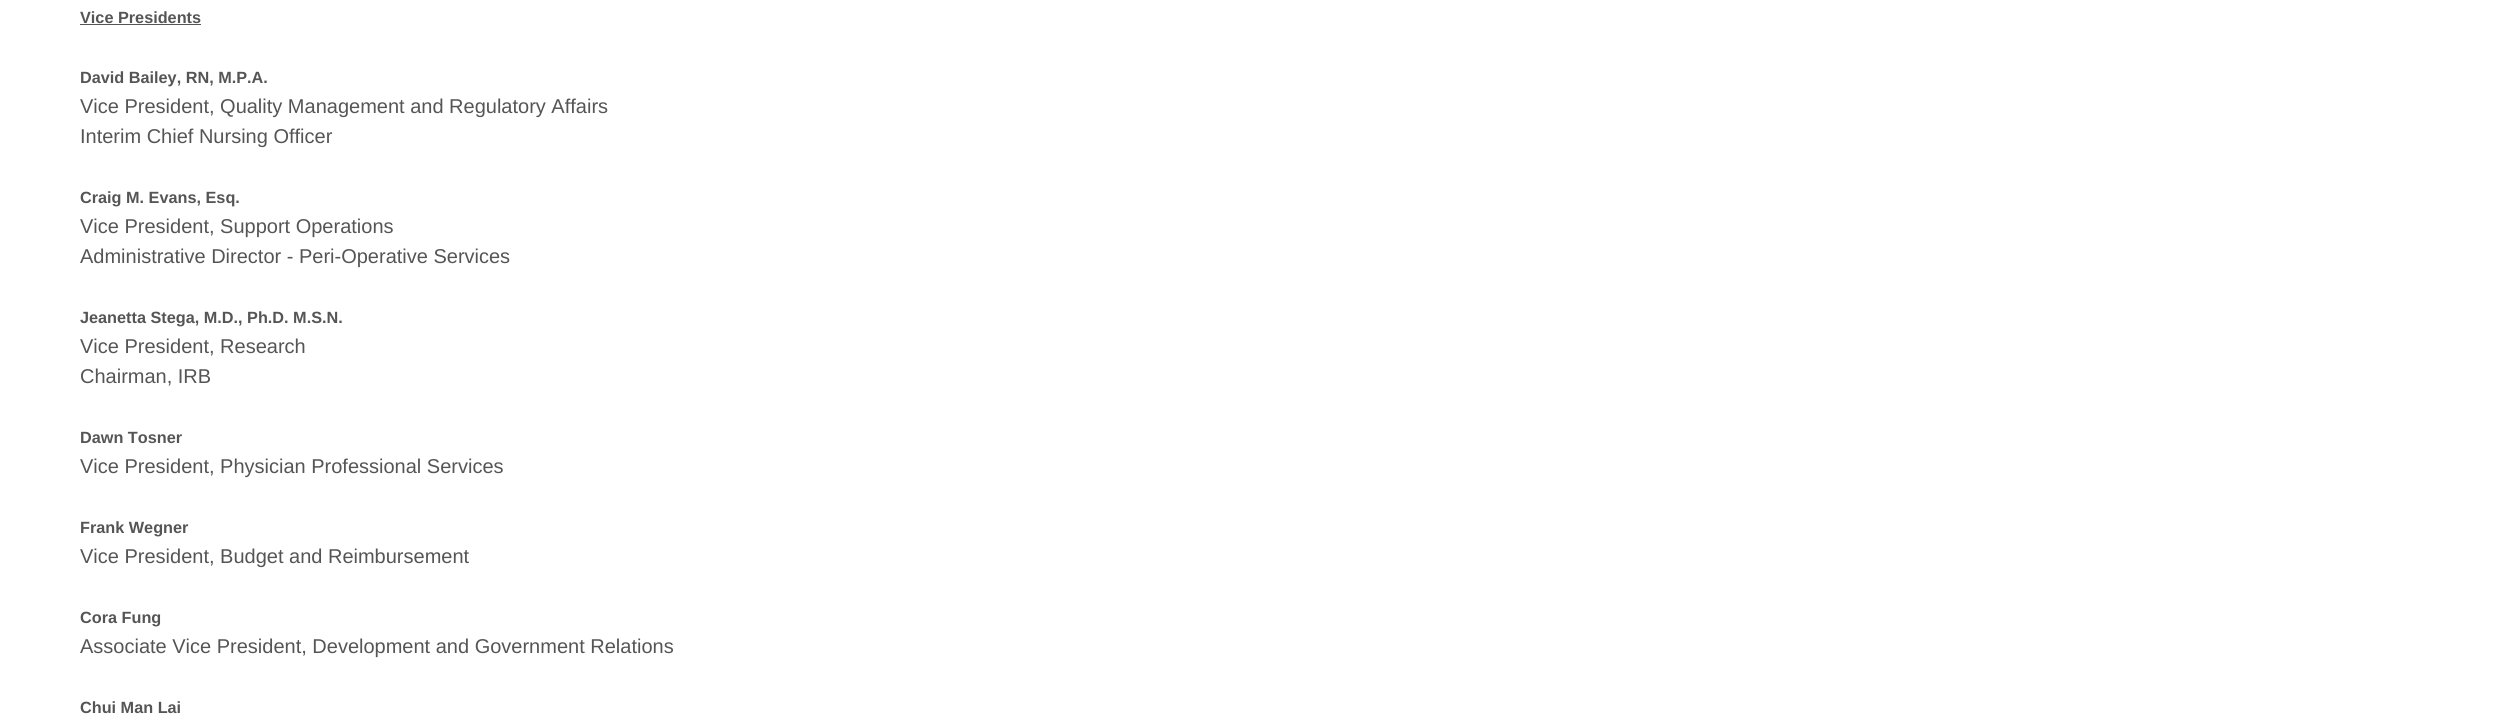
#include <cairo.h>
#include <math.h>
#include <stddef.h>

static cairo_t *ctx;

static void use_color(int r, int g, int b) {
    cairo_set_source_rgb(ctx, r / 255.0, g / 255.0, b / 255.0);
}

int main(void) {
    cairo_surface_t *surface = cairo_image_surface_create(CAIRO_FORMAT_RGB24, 2500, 717);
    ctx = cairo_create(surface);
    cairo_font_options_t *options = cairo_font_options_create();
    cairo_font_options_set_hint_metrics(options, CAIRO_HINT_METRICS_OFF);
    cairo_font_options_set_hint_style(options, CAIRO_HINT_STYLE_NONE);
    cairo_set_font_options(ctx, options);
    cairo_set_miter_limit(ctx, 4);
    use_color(255, 255, 255);
    cairo_paint(ctx);
    cairo_select_font_face(ctx, "Liberation Sans", CAIRO_FONT_SLANT_NORMAL, CAIRO_FONT_WEIGHT_BOLD);
    cairo_set_font_size(ctx, 16.25);
    use_color(85, 85, 85);
    cairo_move_to(ctx, 80, 23);
    cairo_show_text(ctx, "Vice Presidents");
    cairo_rectangle(ctx, 80, 24, 121, 1);
    cairo_fill(ctx);
    cairo_move_to(ctx, 80, 83);
    cairo_show_text(ctx, "David Bailey, RN, M.P.A.");
    cairo_select_font_face(ctx, "Liberation Sans", CAIRO_FONT_SLANT_NORMAL, CAIRO_FONT_WEIGHT_NORMAL);
    cairo_set_font_size(ctx, 20);
    cairo_move_to(ctx, 80, 113);
    cairo_show_text(ctx, "Vice President, Quality Management and Regulatory Affairs");
    cairo_move_to(ctx, 80, 143);
    cairo_show_text(ctx, "Interim Chief Nursing Officer");
    cairo_select_font_face(ctx, "Liberation Sans", CAIRO_FONT_SLANT_NORMAL, CAIRO_FONT_WEIGHT_BOLD);
    cairo_set_font_size(ctx, 16.25);
    cairo_move_to(ctx, 80, 203);
    cairo_show_text(ctx, "Craig M. Evans, Esq.");
    cairo_select_font_face(ctx, "Liberation Sans", CAIRO_FONT_SLANT_NORMAL, CAIRO_FONT_WEIGHT_NORMAL);
    cairo_set_font_size(ctx, 20);
    cairo_move_to(ctx, 80, 233);
    cairo_show_text(ctx, "Vice President, Support Operations");
    cairo_move_to(ctx, 80, 263);
    cairo_show_text(ctx, "Administrative Director - Peri-Operative Services");
    cairo_select_font_face(ctx, "Liberation Sans", CAIRO_FONT_SLANT_NORMAL, CAIRO_FONT_WEIGHT_BOLD);
    cairo_set_font_size(ctx, 16.25);
    cairo_move_to(ctx, 80, 323);
    cairo_show_text(ctx, "Jeanetta Stega, M.D., Ph.D. M.S.N.");
    cairo_select_font_face(ctx, "Liberation Sans", CAIRO_FONT_SLANT_NORMAL, CAIRO_FONT_WEIGHT_NORMAL);
    cairo_set_font_size(ctx, 20);
    cairo_move_to(ctx, 80, 353);
    cairo_show_text(ctx, "Vice President, Research");
    cairo_move_to(ctx, 80, 383);
    cairo_show_text(ctx, "Chairman, IRB");
    cairo_select_font_face(ctx, "Liberation Sans", CAIRO_FONT_SLANT_NORMAL, CAIRO_FONT_WEIGHT_BOLD);
    cairo_set_font_size(ctx, 16.25);
    cairo_move_to(ctx, 80, 443);
    cairo_show_text(ctx, "Dawn Tosner");
    cairo_select_font_face(ctx, "Liberation Sans", CAIRO_FONT_SLANT_NORMAL, CAIRO_FONT_WEIGHT_NORMAL);
    cairo_set_font_size(ctx, 20);
    cairo_move_to(ctx, 80, 473);
    cairo_show_text(ctx, "Vice President, Physician Professional Services");
    cairo_select_font_face(ctx, "Liberation Sans", CAIRO_FONT_SLANT_NORMAL, CAIRO_FONT_WEIGHT_BOLD);
    cairo_set_font_size(ctx, 16.25);
    cairo_move_to(ctx, 80, 533);
    cairo_show_text(ctx, "Frank Wegner");
    cairo_select_font_face(ctx, "Liberation Sans", CAIRO_FONT_SLANT_NORMAL, CAIRO_FONT_WEIGHT_NORMAL);
    cairo_set_font_size(ctx, 20);
    cairo_move_to(ctx, 80, 563);
    cairo_show_text(ctx, "Vice President, Budget and Reimbursement");
    cairo_select_font_face(ctx, "Liberation Sans", CAIRO_FONT_SLANT_NORMAL, CAIRO_FONT_WEIGHT_BOLD);
    cairo_set_font_size(ctx, 16.25);
    cairo_move_to(ctx, 80, 623);
    cairo_show_text(ctx, "Cora Fung");
    cairo_select_font_face(ctx, "Liberation Sans", CAIRO_FONT_SLANT_NORMAL, CAIRO_FONT_WEIGHT_NORMAL);
    cairo_set_font_size(ctx, 20);
    cairo_move_to(ctx, 80, 653);
    cairo_show_text(ctx, "Associate Vice President, Development and Government Relations");
    cairo_select_font_face(ctx, "Liberation Sans", CAIRO_FONT_SLANT_NORMAL, CAIRO_FONT_WEIGHT_BOLD);
    cairo_set_font_size(ctx, 16.25);
    cairo_move_to(ctx, 80, 713);
    cairo_show_text(ctx, "Chui Man Lai");
    cairo_surface_write_to_png(surface, "result.png");
    cairo_font_options_destroy(options);
    cairo_destroy(ctx);
    cairo_surface_destroy(surface);
    return 0;
}
